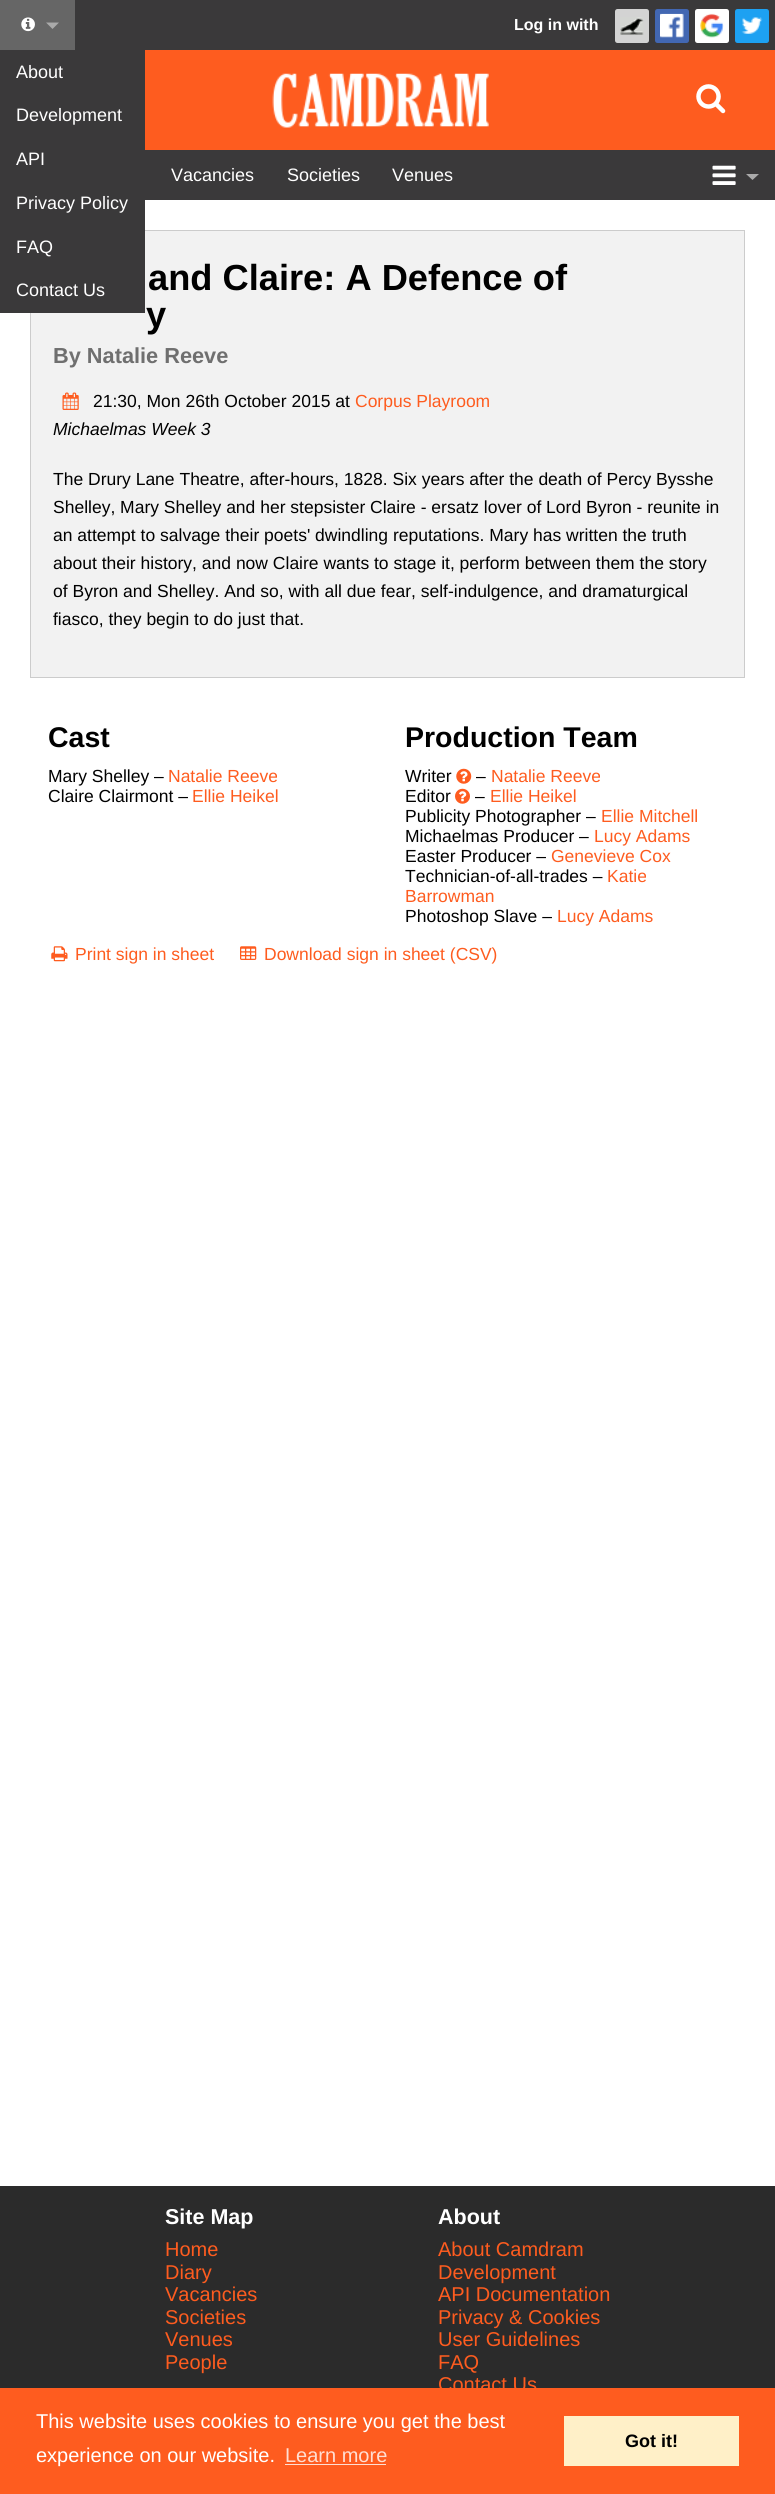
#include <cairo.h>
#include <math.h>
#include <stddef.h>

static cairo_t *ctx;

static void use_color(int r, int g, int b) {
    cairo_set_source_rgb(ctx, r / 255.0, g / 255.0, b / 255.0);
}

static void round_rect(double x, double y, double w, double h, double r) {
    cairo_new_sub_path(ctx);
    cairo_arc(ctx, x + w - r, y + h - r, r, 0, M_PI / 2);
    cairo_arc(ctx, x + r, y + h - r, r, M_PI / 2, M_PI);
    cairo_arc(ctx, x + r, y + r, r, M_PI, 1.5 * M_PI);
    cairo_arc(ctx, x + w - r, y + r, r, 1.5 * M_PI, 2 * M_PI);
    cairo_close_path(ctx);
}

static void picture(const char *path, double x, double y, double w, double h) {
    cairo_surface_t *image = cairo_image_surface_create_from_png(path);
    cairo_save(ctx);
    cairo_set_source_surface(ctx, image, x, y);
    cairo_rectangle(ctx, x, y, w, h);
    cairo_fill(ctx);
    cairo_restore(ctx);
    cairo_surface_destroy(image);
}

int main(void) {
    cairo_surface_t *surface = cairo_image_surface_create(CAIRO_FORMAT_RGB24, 775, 2494);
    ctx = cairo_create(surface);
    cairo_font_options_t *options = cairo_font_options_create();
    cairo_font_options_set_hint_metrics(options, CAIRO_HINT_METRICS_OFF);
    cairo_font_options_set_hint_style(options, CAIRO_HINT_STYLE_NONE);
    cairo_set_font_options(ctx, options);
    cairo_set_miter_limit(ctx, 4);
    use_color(255, 255, 255);
    cairo_paint(ctx);
    use_color(58, 57, 58);
    cairo_rectangle(ctx, 75, 0, 700, 50);
    cairo_fill(ctx);
    cairo_select_font_face(ctx, "Liberation Sans", CAIRO_FONT_SLANT_NORMAL, CAIRO_FONT_WEIGHT_BOLD);
    cairo_set_font_size(ctx, 16);
    use_color(255, 255, 255);
    cairo_move_to(ctx, 514, 30);
    cairo_show_text(ctx, "Log in with");
    use_color(211, 211, 211);
    round_rect(615, 9, 34, 34, 2.5);
    cairo_fill(ctx);
    picture("img1.png", 620, 17, 24, 18);
    use_color(66, 103, 178);
    round_rect(655, 9, 34, 34, 2.5);
    cairo_fill(ctx);
    picture("img2.png", 660, 13, 24, 25);
    use_color(255, 255, 255);
    round_rect(695, 9, 34, 34, 2.5);
    cairo_fill(ctx);
    picture("img3.png", 700, 13, 24, 25);
    use_color(29, 161, 242);
    round_rect(735, 9, 34, 34, 2.5);
    cairo_fill(ctx);
    picture("img4.png", 741, 17, 22, 17);
    use_color(102, 102, 102);
    cairo_rectangle(ctx, 0, 0, 75, 50);
    cairo_fill(ctx);
    picture("img5.png", 21, 17, 14, 15);
    use_color(170, 170, 170);
    cairo_new_path(ctx);
    cairo_move_to(ctx, 46, 22.5);
    cairo_line_to(ctx, 59, 22.5);
    cairo_line_to(ctx, 52.5, 29);
    cairo_close_path(ctx);
    cairo_fill(ctx);
    use_color(242, 242, 242);
    cairo_rectangle(ctx, 30.5, 230.5, 714, 447);
    cairo_fill_preserve(ctx);
    use_color(204, 204, 204);
    cairo_set_line_width(ctx, 1);
    cairo_stroke(ctx);
    use_color(58, 57, 58);
    cairo_rectangle(ctx, 0, 50, 145, 263);
    cairo_fill(ctx);
    cairo_select_font_face(ctx, "Liberation Sans", CAIRO_FONT_SLANT_NORMAL, CAIRO_FONT_WEIGHT_NORMAL);
    cairo_set_font_size(ctx, 18);
    use_color(255, 255, 255);
    cairo_move_to(ctx, 16, 78);
    cairo_show_text(ctx, "About");
    cairo_move_to(ctx, 16, 121);
    cairo_show_text(ctx, "Development");
    cairo_move_to(ctx, 16, 165);
    cairo_show_text(ctx, "API");
    cairo_move_to(ctx, 16, 209);
    cairo_show_text(ctx, "Privacy Policy");
    cairo_move_to(ctx, 16, 253);
    cairo_show_text(ctx, "FAQ");
    cairo_move_to(ctx, 16, 296);
    cairo_show_text(ctx, "Contact Us");
    use_color(254, 92, 31);
    cairo_rectangle(ctx, 145, 50, 630, 100);
    cairo_fill(ctx);
    picture("img6.png", 272, 73, 217, 55);
    picture("img7.png", 696, 84, 30, 30);
    use_color(58, 57, 58);
    cairo_rectangle(ctx, 145, 150, 630, 50);
    cairo_fill(ctx);
    use_color(255, 255, 255);
    cairo_move_to(ctx, 171, 181);
    cairo_show_text(ctx, "Vacancies");
    cairo_move_to(ctx, 287, 181);
    cairo_show_text(ctx, "Societies");
    cairo_move_to(ctx, 392, 181);
    cairo_show_text(ctx, "Venues");
    picture("img8.png", 712, 165, 24, 20);
    use_color(170, 170, 170);
    cairo_new_path(ctx);
    cairo_move_to(ctx, 746, 174);
    cairo_line_to(ctx, 759, 174);
    cairo_line_to(ctx, 752.5, 180);
    cairo_close_path(ctx);
    cairo_fill(ctx);
    cairo_select_font_face(ctx, "Liberation Sans", CAIRO_FONT_SLANT_NORMAL, CAIRO_FONT_WEIGHT_BOLD);
    cairo_set_font_size(ctx, 36.25);
    use_color(0, 0, 0);
    cairo_move_to(ctx, 148, 290);
    cairo_show_text(ctx, "and Claire: A Defence of");
    cairo_move_to(ctx, 146, 327);
    cairo_show_text(ctx, "y");
    cairo_set_font_size(ctx, 21.75);
    use_color(111, 111, 111);
    cairo_move_to(ctx, 53, 363);
    cairo_show_text(ctx, "By Natalie Reeve");
    picture("img9.png", 62, 392, 17, 18);
    cairo_select_font_face(ctx, "Liberation Sans", CAIRO_FONT_SLANT_NORMAL, CAIRO_FONT_WEIGHT_NORMAL);
    cairo_set_font_size(ctx, 17.5);
    use_color(0, 0, 0);
    cairo_move_to(ctx, 93, 407);
    cairo_show_text(ctx, "21:30, Mon 26th October 2015 at");
    use_color(254, 92, 31);
    cairo_move_to(ctx, 355, 407);
    cairo_show_text(ctx, "Corpus Playroom");
    cairo_select_font_face(ctx, "Liberation Sans", CAIRO_FONT_SLANT_ITALIC, CAIRO_FONT_WEIGHT_NORMAL);
    use_color(0, 0, 0);
    cairo_move_to(ctx, 53, 435);
    cairo_show_text(ctx, "Michaelmas Week 3");
    cairo_select_font_face(ctx, "Liberation Sans", CAIRO_FONT_SLANT_NORMAL, CAIRO_FONT_WEIGHT_NORMAL);
    cairo_move_to(ctx, 53, 485);
    cairo_show_text(ctx, "The Drury Lane Theatre, after-hours, 1828. Six years after the death of Percy Bysshe");
    cairo_move_to(ctx, 53, 513);
    cairo_show_text(ctx, "Shelley, Mary Shelley and her stepsister Claire - ersatz lover of Lord Byron - reunite in");
    cairo_move_to(ctx, 53, 541);
    cairo_show_text(ctx, "an attempt to salvage their poets' dwindling reputations. Mary has written the truth");
    cairo_move_to(ctx, 53, 569);
    cairo_show_text(ctx, "about their history, and now Claire wants to stage it, perform between them the story");
    cairo_move_to(ctx, 53, 597);
    cairo_show_text(ctx, "of Byron and Shelley. And so, with all due fear, self-indulgence, and dramaturgical");
    cairo_move_to(ctx, 53, 625);
    cairo_show_text(ctx, "fiasco, they begin to do just that.");
    cairo_select_font_face(ctx, "Liberation Sans", CAIRO_FONT_SLANT_NORMAL, CAIRO_FONT_WEIGHT_BOLD);
    cairo_set_font_size(ctx, 28.5);
    cairo_move_to(ctx, 48, 747);
    cairo_show_text(ctx, "Cast");
    cairo_select_font_face(ctx, "Liberation Sans", CAIRO_FONT_SLANT_NORMAL, CAIRO_FONT_WEIGHT_NORMAL);
    cairo_set_font_size(ctx, 17.5);
    cairo_move_to(ctx, 48, 782);
    cairo_show_text(ctx, "Mary Shelley –");
    use_color(254, 92, 31);
    cairo_move_to(ctx, 168, 782);
    cairo_show_text(ctx, "Natalie Reeve");
    use_color(0, 0, 0);
    cairo_move_to(ctx, 48, 802);
    cairo_show_text(ctx, "Claire Clairmont –");
    use_color(254, 92, 31);
    cairo_move_to(ctx, 192, 802);
    cairo_show_text(ctx, "Ellie Heikel");
    cairo_select_font_face(ctx, "Liberation Sans", CAIRO_FONT_SLANT_NORMAL, CAIRO_FONT_WEIGHT_BOLD);
    cairo_set_font_size(ctx, 28.5);
    use_color(0, 0, 0);
    cairo_move_to(ctx, 405, 747);
    cairo_show_text(ctx, "Production Team");
    cairo_select_font_face(ctx, "Liberation Sans", CAIRO_FONT_SLANT_NORMAL, CAIRO_FONT_WEIGHT_NORMAL);
    cairo_set_font_size(ctx, 17.5);
    cairo_move_to(ctx, 405, 782);
    cairo_show_text(ctx, "Writer");
    picture("img10.png", 456, 768, 16, 16);
    cairo_move_to(ctx, 476, 782);
    cairo_show_text(ctx, "–");
    use_color(254, 92, 31);
    cairo_move_to(ctx, 491, 782);
    cairo_show_text(ctx, "Natalie Reeve");
    use_color(0, 0, 0);
    cairo_move_to(ctx, 405, 802);
    cairo_show_text(ctx, "Editor");
    picture("img11.png", 455, 788, 15, 16);
    cairo_move_to(ctx, 475, 802);
    cairo_show_text(ctx, "–");
    use_color(254, 92, 31);
    cairo_move_to(ctx, 490, 802);
    cairo_show_text(ctx, "Ellie Heikel");
    use_color(0, 0, 0);
    cairo_move_to(ctx, 405, 822);
    cairo_show_text(ctx, "Publicity Photographer –");
    use_color(254, 92, 31);
    cairo_move_to(ctx, 601, 822);
    cairo_show_text(ctx, "Ellie Mitchell");
    use_color(0, 0, 0);
    cairo_move_to(ctx, 405, 842);
    cairo_show_text(ctx, "Michaelmas Producer –");
    use_color(254, 92, 31);
    cairo_move_to(ctx, 594, 842);
    cairo_show_text(ctx, "Lucy Adams");
    use_color(0, 0, 0);
    cairo_move_to(ctx, 405, 862);
    cairo_show_text(ctx, "Easter Producer –");
    use_color(254, 92, 31);
    cairo_move_to(ctx, 551, 862);
    cairo_show_text(ctx, "Genevieve Cox");
    use_color(0, 0, 0);
    cairo_move_to(ctx, 405, 882);
    cairo_show_text(ctx, "Technician-of-all-trades –");
    use_color(254, 92, 31);
    cairo_move_to(ctx, 607, 882);
    cairo_show_text(ctx, "Katie");
    cairo_move_to(ctx, 405, 902);
    cairo_show_text(ctx, "Barrowman");
    use_color(0, 0, 0);
    cairo_move_to(ctx, 405, 922);
    cairo_show_text(ctx, "Photoshop Slave –");
    use_color(254, 92, 31);
    cairo_move_to(ctx, 557, 922);
    cairo_show_text(ctx, "Lucy Adams");
    picture("img12.png", 51, 946, 17, 16);
    cairo_move_to(ctx, 75, 960);
    cairo_show_text(ctx, "Print sign in sheet");
    picture("img13.png", 240, 946, 17, 14);
    cairo_move_to(ctx, 264, 960);
    cairo_show_text(ctx, "Download sign in sheet (CSV)");
    use_color(43, 43, 43);
    cairo_rectangle(ctx, 0, 2186, 775, 202);
    cairo_fill(ctx);
    cairo_select_font_face(ctx, "Liberation Sans", CAIRO_FONT_SLANT_NORMAL, CAIRO_FONT_WEIGHT_BOLD);
    cairo_set_font_size(ctx, 21.5);
    use_color(255, 255, 255);
    cairo_move_to(ctx, 165, 2224);
    cairo_show_text(ctx, "Site Map");
    cairo_select_font_face(ctx, "Liberation Sans", CAIRO_FONT_SLANT_NORMAL, CAIRO_FONT_WEIGHT_NORMAL);
    cairo_set_font_size(ctx, 20);
    use_color(254, 92, 31);
    cairo_move_to(ctx, 165, 2256);
    cairo_show_text(ctx, "Home");
    cairo_move_to(ctx, 165, 2279);
    cairo_show_text(ctx, "Diary");
    cairo_move_to(ctx, 165, 2301);
    cairo_show_text(ctx, "Vacancies");
    cairo_move_to(ctx, 165, 2324);
    cairo_show_text(ctx, "Societies");
    cairo_move_to(ctx, 165, 2346);
    cairo_show_text(ctx, "Venues");
    cairo_move_to(ctx, 165, 2369);
    cairo_show_text(ctx, "People");
    cairo_select_font_face(ctx, "Liberation Sans", CAIRO_FONT_SLANT_NORMAL, CAIRO_FONT_WEIGHT_BOLD);
    cairo_set_font_size(ctx, 21.5);
    use_color(255, 255, 255);
    cairo_move_to(ctx, 438, 2224);
    cairo_show_text(ctx, "About");
    cairo_select_font_face(ctx, "Liberation Sans", CAIRO_FONT_SLANT_NORMAL, CAIRO_FONT_WEIGHT_NORMAL);
    cairo_set_font_size(ctx, 20);
    use_color(254, 92, 31);
    cairo_move_to(ctx, 438, 2256);
    cairo_show_text(ctx, "About Camdram");
    cairo_move_to(ctx, 438, 2279);
    cairo_show_text(ctx, "Development");
    cairo_move_to(ctx, 438, 2301);
    cairo_show_text(ctx, "API Documentation");
    cairo_move_to(ctx, 438, 2324);
    cairo_show_text(ctx, "Privacy & Cookies");
    cairo_move_to(ctx, 438, 2346);
    cairo_show_text(ctx, "User Guidelines");
    cairo_move_to(ctx, 438, 2369);
    cairo_show_text(ctx, "FAQ");
    cairo_move_to(ctx, 438, 2391);
    cairo_show_text(ctx, "Contact Us");
    cairo_rectangle(ctx, 0, 2388, 775, 106);
    cairo_fill(ctx);
    use_color(255, 255, 255);
    cairo_move_to(ctx, 36, 2428);
    cairo_show_text(ctx, "This website uses cookies to ensure you get the best");
    cairo_move_to(ctx, 36, 2462);
    cairo_show_text(ctx, "experience on our website.");
    use_color(255, 222, 210);
    cairo_move_to(ctx, 285, 2462);
    cairo_show_text(ctx, "Learn more");
    cairo_rectangle(ctx, 285, 2464, 101, 1);
    cairo_fill(ctx);
    use_color(255, 240, 200);
    cairo_rectangle(ctx, 564, 2416, 175, 50);
    cairo_fill(ctx);
    cairo_select_font_face(ctx, "Liberation Sans", CAIRO_FONT_SLANT_NORMAL, CAIRO_FONT_WEIGHT_BOLD);
    cairo_set_font_size(ctx, 18);
    use_color(0, 0, 0);
    cairo_move_to(ctx, 625, 2447);
    cairo_show_text(ctx, "Got it!");
    cairo_surface_write_to_png(surface, "result.png");
    cairo_font_options_destroy(options);
    cairo_destroy(ctx);
    cairo_surface_destroy(surface);
    return 0;
}
